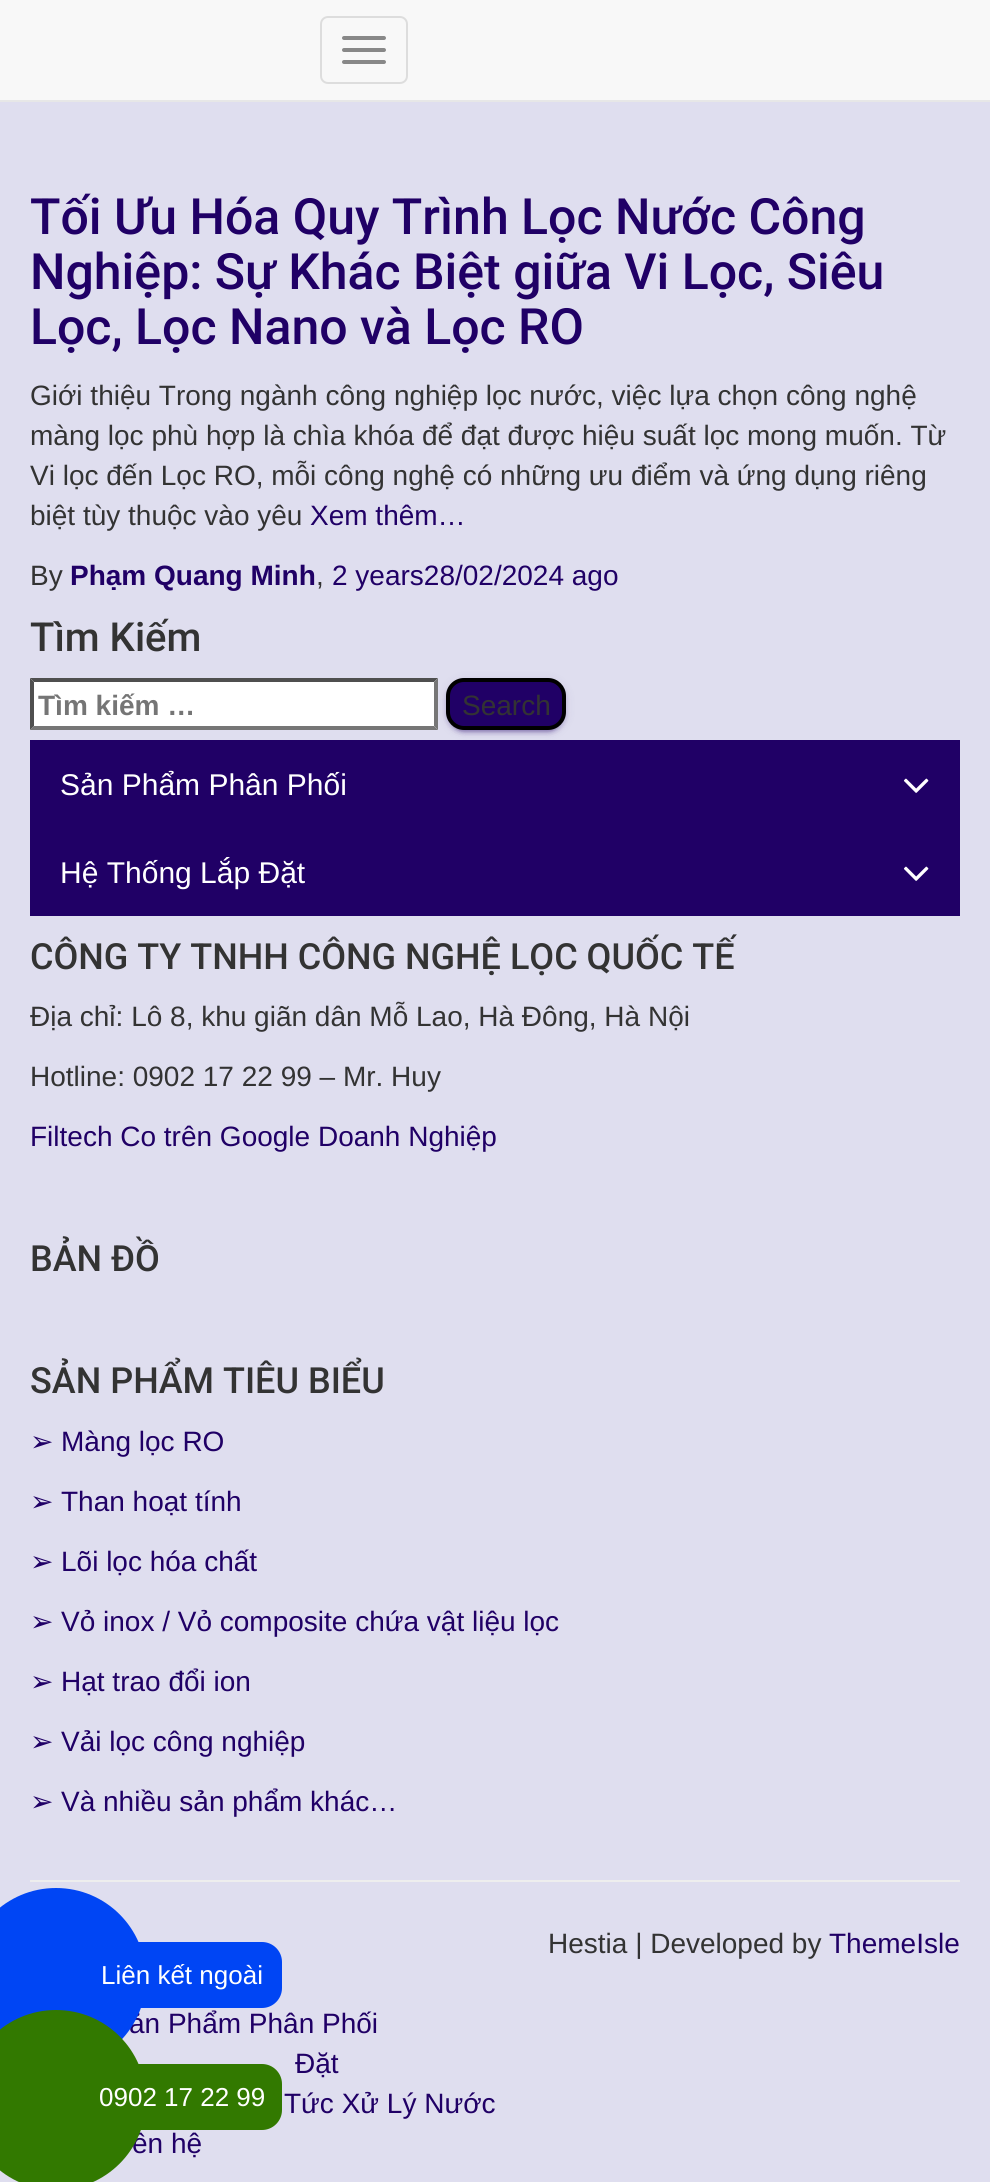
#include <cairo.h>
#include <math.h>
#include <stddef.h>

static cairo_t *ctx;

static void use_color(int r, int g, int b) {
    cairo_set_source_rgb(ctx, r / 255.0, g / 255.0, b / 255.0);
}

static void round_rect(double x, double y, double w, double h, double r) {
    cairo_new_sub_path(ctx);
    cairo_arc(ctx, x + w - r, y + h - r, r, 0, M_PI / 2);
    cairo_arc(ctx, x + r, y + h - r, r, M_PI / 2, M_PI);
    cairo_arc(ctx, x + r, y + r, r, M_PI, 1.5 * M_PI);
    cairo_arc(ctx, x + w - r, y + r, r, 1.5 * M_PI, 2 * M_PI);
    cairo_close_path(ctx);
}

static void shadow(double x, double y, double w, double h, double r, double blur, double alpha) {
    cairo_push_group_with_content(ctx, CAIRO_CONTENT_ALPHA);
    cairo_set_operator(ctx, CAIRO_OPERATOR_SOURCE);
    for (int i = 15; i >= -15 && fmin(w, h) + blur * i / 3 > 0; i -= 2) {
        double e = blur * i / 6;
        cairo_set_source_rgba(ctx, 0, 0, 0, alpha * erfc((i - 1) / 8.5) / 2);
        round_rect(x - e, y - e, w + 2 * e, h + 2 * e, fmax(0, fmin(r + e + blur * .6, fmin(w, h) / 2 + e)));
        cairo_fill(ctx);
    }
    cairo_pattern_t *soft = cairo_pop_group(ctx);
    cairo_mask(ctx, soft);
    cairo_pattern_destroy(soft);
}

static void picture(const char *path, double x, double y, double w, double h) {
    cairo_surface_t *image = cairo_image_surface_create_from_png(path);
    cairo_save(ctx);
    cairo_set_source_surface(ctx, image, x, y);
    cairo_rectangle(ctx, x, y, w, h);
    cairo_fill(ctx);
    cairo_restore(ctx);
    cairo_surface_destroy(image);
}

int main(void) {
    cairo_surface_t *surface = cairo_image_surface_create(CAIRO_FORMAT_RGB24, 990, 2182);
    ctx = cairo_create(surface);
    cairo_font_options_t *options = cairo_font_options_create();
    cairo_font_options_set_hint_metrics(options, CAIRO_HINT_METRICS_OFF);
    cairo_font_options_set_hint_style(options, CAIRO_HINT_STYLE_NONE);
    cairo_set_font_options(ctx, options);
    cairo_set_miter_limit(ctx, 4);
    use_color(223, 222, 239);
    cairo_paint(ctx);
    use_color(248, 248, 248);
    cairo_rectangle(ctx, 0, 0, 990, 100);
    cairo_fill(ctx);
    use_color(231, 231, 231);
    cairo_rectangle(ctx, 0, 100, 990, 2);
    cairo_fill(ctx);
    round_rect(321, 17, 86, 66, 7);
    use_color(221, 221, 221);
    cairo_stroke(ctx);
    use_color(136, 136, 136);
    round_rect(342, 36, 44, 4, 2);
    cairo_fill(ctx);
    round_rect(342, 48, 44, 4, 2);
    cairo_fill(ctx);
    round_rect(342, 60, 44, 4, 2);
    cairo_fill(ctx);
    cairo_select_font_face(ctx, "Roboto Medium", CAIRO_FONT_SLANT_NORMAL, CAIRO_FONT_WEIGHT_NORMAL);
    cairo_set_font_size(ctx, 50);
    use_color(32, 0, 102);
    cairo_move_to(ctx, 30, 234);
    cairo_show_text(ctx, "Tối Ưu Hóa Quy Trình Lọc Nước Công");
    cairo_move_to(ctx, 30, 289);
    cairo_show_text(ctx, "Nghiệp: Sự Khác Biệt giữa Vi Lọc, Siêu");
    cairo_move_to(ctx, 30, 344);
    cairo_show_text(ctx, "Lọc, Lọc Nano và Lọc RO");
    cairo_select_font_face(ctx, "Liberation Sans", CAIRO_FONT_SLANT_NORMAL, CAIRO_FONT_WEIGHT_NORMAL);
    cairo_set_font_size(ctx, 28);
    use_color(51, 51, 51);
    cairo_move_to(ctx, 30, 405);
    cairo_show_text(ctx, "Giới thiệu Trong ngành công nghiệp lọc nước, việc lựa chọn công nghệ");
    cairo_move_to(ctx, 30, 445);
    cairo_show_text(ctx, "màng lọc phù hợp là chìa khóa để đạt được hiệu suất lọc mong muốn. Từ");
    cairo_move_to(ctx, 30, 485);
    cairo_show_text(ctx, "Vi lọc đến Lọc RO, mỗi công nghệ có những ưu điểm và ứng dụng riêng");
    cairo_move_to(ctx, 30, 525);
    cairo_show_text(ctx, "biệt tùy thuộc vào yêu");
    use_color(32, 0, 102);
    cairo_move_to(ctx, 310, 525);
    cairo_show_text(ctx, "Xem thêm…");
    use_color(51, 51, 51);
    cairo_move_to(ctx, 30, 585);
    cairo_show_text(ctx, "By");
    cairo_select_font_face(ctx, "Liberation Sans", CAIRO_FONT_SLANT_NORMAL, CAIRO_FONT_WEIGHT_BOLD);
    use_color(32, 0, 102);
    cairo_move_to(ctx, 70, 585);
    cairo_show_text(ctx, "Phạm Quang Minh");
    cairo_select_font_face(ctx, "Liberation Sans", CAIRO_FONT_SLANT_NORMAL, CAIRO_FONT_WEIGHT_NORMAL);
    use_color(51, 51, 51);
    cairo_move_to(ctx, 316, 585);
    cairo_show_text(ctx, ",");
    use_color(32, 0, 102);
    cairo_move_to(ctx, 332, 585);
    cairo_show_text(ctx, "2 years28/02/2024 ago");
    cairo_select_font_face(ctx, "Roboto Medium", CAIRO_FONT_SLANT_NORMAL, CAIRO_FONT_WEIGHT_NORMAL);
    cairo_set_font_size(ctx, 40);
    use_color(51, 51, 51);
    cairo_move_to(ctx, 30, 651);
    cairo_show_text(ctx, "Tìm Kiếm");
    use_color(255, 255, 255);
    cairo_rectangle(ctx, 30, 678, 408, 52);
    cairo_fill(ctx);
    use_color(79, 79, 79);
    cairo_new_path(ctx);
    cairo_move_to(ctx, 30, 678);
    cairo_line_to(ctx, 438, 678);
    cairo_line_to(ctx, 434, 682);
    cairo_line_to(ctx, 34, 682);
    cairo_close_path(ctx);
    cairo_fill(ctx);
    use_color(118, 118, 118);
    cairo_new_path(ctx);
    cairo_move_to(ctx, 438, 678);
    cairo_line_to(ctx, 438, 730);
    cairo_line_to(ctx, 434, 726);
    cairo_line_to(ctx, 434, 682);
    cairo_close_path(ctx);
    cairo_fill(ctx);
    cairo_new_path(ctx);
    cairo_move_to(ctx, 438, 730);
    cairo_line_to(ctx, 30, 730);
    cairo_line_to(ctx, 34, 726);
    cairo_line_to(ctx, 434, 726);
    cairo_close_path(ctx);
    cairo_fill(ctx);
    use_color(79, 79, 79);
    cairo_new_path(ctx);
    cairo_move_to(ctx, 30, 730);
    cairo_line_to(ctx, 30, 678);
    cairo_line_to(ctx, 34, 682);
    cairo_line_to(ctx, 34, 726);
    cairo_close_path(ctx);
    cairo_fill(ctx);
    cairo_select_font_face(ctx, "Liberation Sans", CAIRO_FONT_SLANT_NORMAL, CAIRO_FONT_WEIGHT_BOLD);
    cairo_set_font_size(ctx, 28);
    use_color(117, 117, 117);
    cairo_move_to(ctx, 38, 715);
    cairo_show_text(ctx, "Tìm kiếm …");
    use_color(32, 0, 102);
    cairo_rectangle(ctx, 30, 740, 930, 176);
    cairo_fill(ctx);
    use_color(32, 0, 102);
    shadow(446, 680, 120, 52, 18, 5, 0.12);
    shadow(450, 688, 112, 44, 14, 1, 0.2);
    shadow(446, 682, 120, 52, 18, 2, 0.14);
    use_color(32, 0, 102);
    round_rect(448, 680, 116, 48, 16);
    cairo_fill_preserve(ctx);
    use_color(0, 0, 0);
    cairo_set_line_width(ctx, 4);
    cairo_stroke(ctx);
    cairo_select_font_face(ctx, "Liberation Sans", CAIRO_FONT_SLANT_NORMAL, CAIRO_FONT_WEIGHT_NORMAL);
    use_color(51, 51, 51);
    cairo_move_to(ctx, 462, 715);
    cairo_show_text(ctx, "Search");
    cairo_set_font_size(ctx, 30);
    use_color(255, 255, 255);
    cairo_move_to(ctx, 60, 795);
    cairo_show_text(ctx, "Sản Phẩm Phân Phối");
    picture("img1.png", 903, 778, 26, 15);
    cairo_move_to(ctx, 60, 883);
    cairo_show_text(ctx, "Hệ Thống Lắp Đặt");
    picture("img1.png", 903, 866, 26, 15);
    cairo_select_font_face(ctx, "Roboto Medium", CAIRO_FONT_SLANT_NORMAL, CAIRO_FONT_WEIGHT_NORMAL);
    cairo_set_font_size(ctx, 36);
    use_color(51, 51, 51);
    cairo_move_to(ctx, 30, 969);
    cairo_show_text(ctx, "CÔNG TY TNHH CÔNG NGHỆ LỌC QUỐC TẾ");
    cairo_select_font_face(ctx, "Liberation Sans", CAIRO_FONT_SLANT_NORMAL, CAIRO_FONT_WEIGHT_NORMAL);
    cairo_set_font_size(ctx, 28);
    cairo_move_to(ctx, 30, 1026);
    cairo_show_text(ctx, "Địa chỉ: Lô 8, khu giãn dân Mỗ Lao, Hà Đông, Hà Nội");
    cairo_move_to(ctx, 30, 1086);
    cairo_show_text(ctx, "Hotline: 0902 17 22 99 – Mr. Huy");
    use_color(32, 0, 102);
    cairo_move_to(ctx, 30, 1146);
    cairo_show_text(ctx, "Filtech Co trên Google Doanh Nghiệp");
    cairo_select_font_face(ctx, "Roboto Medium", CAIRO_FONT_SLANT_NORMAL, CAIRO_FONT_WEIGHT_NORMAL);
    cairo_set_font_size(ctx, 36);
    use_color(51, 51, 51);
    cairo_move_to(ctx, 30, 1271);
    cairo_show_text(ctx, "BẢN ĐỒ");
    cairo_move_to(ctx, 30, 1393);
    cairo_show_text(ctx, "SẢN PHẨM TIÊU BIỂU");
    cairo_select_font_face(ctx, "DejaVu Sans", CAIRO_FONT_SLANT_NORMAL, CAIRO_FONT_WEIGHT_NORMAL);
    cairo_set_font_size(ctx, 28);
    use_color(32, 0, 102);
    cairo_move_to(ctx, 30, 1451);
    cairo_show_text(ctx, "➢");
    cairo_select_font_face(ctx, "Liberation Sans", CAIRO_FONT_SLANT_NORMAL, CAIRO_FONT_WEIGHT_NORMAL);
    cairo_move_to(ctx, 61, 1451);
    cairo_show_text(ctx, "Màng lọc RO");
    cairo_select_font_face(ctx, "DejaVu Sans", CAIRO_FONT_SLANT_NORMAL, CAIRO_FONT_WEIGHT_NORMAL);
    cairo_move_to(ctx, 30, 1511);
    cairo_show_text(ctx, "➢");
    cairo_select_font_face(ctx, "Liberation Sans", CAIRO_FONT_SLANT_NORMAL, CAIRO_FONT_WEIGHT_NORMAL);
    cairo_move_to(ctx, 61, 1511);
    cairo_show_text(ctx, "Than hoạt tính");
    cairo_select_font_face(ctx, "DejaVu Sans", CAIRO_FONT_SLANT_NORMAL, CAIRO_FONT_WEIGHT_NORMAL);
    cairo_move_to(ctx, 30, 1571);
    cairo_show_text(ctx, "➢");
    cairo_select_font_face(ctx, "Liberation Sans", CAIRO_FONT_SLANT_NORMAL, CAIRO_FONT_WEIGHT_NORMAL);
    cairo_move_to(ctx, 61, 1571);
    cairo_show_text(ctx, "Lõi lọc hóa chất");
    cairo_select_font_face(ctx, "DejaVu Sans", CAIRO_FONT_SLANT_NORMAL, CAIRO_FONT_WEIGHT_NORMAL);
    cairo_move_to(ctx, 30, 1631);
    cairo_show_text(ctx, "➢");
    cairo_select_font_face(ctx, "Liberation Sans", CAIRO_FONT_SLANT_NORMAL, CAIRO_FONT_WEIGHT_NORMAL);
    cairo_move_to(ctx, 61, 1631);
    cairo_show_text(ctx, "Vỏ inox / Vỏ composite chứa vật liệu lọc");
    cairo_select_font_face(ctx, "DejaVu Sans", CAIRO_FONT_SLANT_NORMAL, CAIRO_FONT_WEIGHT_NORMAL);
    cairo_move_to(ctx, 30, 1691);
    cairo_show_text(ctx, "➢");
    cairo_select_font_face(ctx, "Liberation Sans", CAIRO_FONT_SLANT_NORMAL, CAIRO_FONT_WEIGHT_NORMAL);
    cairo_move_to(ctx, 61, 1691);
    cairo_show_text(ctx, "Hạt trao đổi ion");
    cairo_select_font_face(ctx, "DejaVu Sans", CAIRO_FONT_SLANT_NORMAL, CAIRO_FONT_WEIGHT_NORMAL);
    cairo_move_to(ctx, 30, 1751);
    cairo_show_text(ctx, "➢");
    cairo_select_font_face(ctx, "Liberation Sans", CAIRO_FONT_SLANT_NORMAL, CAIRO_FONT_WEIGHT_NORMAL);
    cairo_move_to(ctx, 61, 1751);
    cairo_show_text(ctx, "Vải lọc công nghiệp");
    cairo_select_font_face(ctx, "DejaVu Sans", CAIRO_FONT_SLANT_NORMAL, CAIRO_FONT_WEIGHT_NORMAL);
    cairo_move_to(ctx, 30, 1811);
    cairo_show_text(ctx, "➢");
    cairo_select_font_face(ctx, "Liberation Sans", CAIRO_FONT_SLANT_NORMAL, CAIRO_FONT_WEIGHT_NORMAL);
    cairo_move_to(ctx, 61, 1811);
    cairo_show_text(ctx, "Và nhiều sản phẩm khác…");
    use_color(238, 238, 238);
    cairo_rectangle(ctx, 30, 1880, 930, 2);
    cairo_fill(ctx);
    use_color(51, 51, 51);
    cairo_move_to(ctx, 548, 1953);
    cairo_show_text(ctx, "Hestia | Developed by");
    use_color(32, 0, 102);
    cairo_move_to(ctx, 829, 1953);
    cairo_show_text(ctx, "ThemeIsle");
    cairo_move_to(ctx, 129, 2033);
    cairo_show_text(ctx, "ản Phẩm Phân Phối");
    cairo_move_to(ctx, 295, 2073);
    cairo_show_text(ctx, "Đặt");
    cairo_move_to(ctx, 284, 2113);
    cairo_show_text(ctx, "Tức Xử Lý Nước");
    cairo_move_to(ctx, 132, 2153);
    cairo_show_text(ctx, "ên hệ");
    use_color(0, 69, 244);
    cairo_new_path(ctx);
    cairo_arc(ctx, 56, 1978, 90, 0, 2 * M_PI);
    cairo_fill(ctx);
    cairo_new_path(ctx);
    cairo_move_to(ctx, 82, 1942);
    cairo_line_to(ctx, 262, 1942);
    cairo_curve_to(ctx, 273, 1942, 282, 1951, 282, 1962);
    cairo_line_to(ctx, 282, 1988);
    cairo_curve_to(ctx, 282, 1999, 273, 2008, 262, 2008);
    cairo_line_to(ctx, 82, 2008);
    cairo_close_path(ctx);
    cairo_fill(ctx);
    cairo_set_font_size(ctx, 26);
    use_color(255, 255, 255);
    cairo_move_to(ctx, 101, 1984);
    cairo_show_text(ctx, "Liên kết ngoài");
    use_color(50, 121, 0);
    cairo_new_path(ctx);
    cairo_arc(ctx, 56, 2100, 90, 0, 2 * M_PI);
    cairo_fill(ctx);
    cairo_new_path(ctx);
    cairo_move_to(ctx, 82, 2064);
    cairo_line_to(ctx, 262, 2064);
    cairo_curve_to(ctx, 273, 2064, 282, 2073, 282, 2084);
    cairo_line_to(ctx, 282, 2110);
    cairo_curve_to(ctx, 282, 2121, 273, 2130, 262, 2130);
    cairo_line_to(ctx, 82, 2130);
    cairo_close_path(ctx);
    cairo_fill(ctx);
    use_color(255, 255, 255);
    cairo_move_to(ctx, 99, 2106);
    cairo_show_text(ctx, "0902 17 22 99");
    cairo_surface_write_to_png(surface, "result.png");
    cairo_font_options_destroy(options);
    cairo_destroy(ctx);
    cairo_surface_destroy(surface);
    return 0;
}
